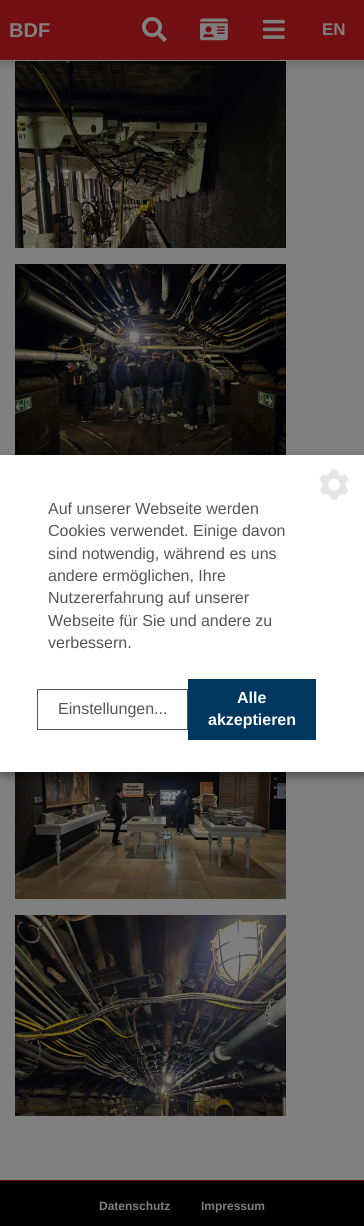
#include <cairo.h>
#include <math.h>
#include <stddef.h>

static cairo_t *ctx;

static void use_color(int r, int g, int b) {
    cairo_set_source_rgb(ctx, r / 255.0, g / 255.0, b / 255.0);
}

static void round_rect(double x, double y, double w, double h, double r) {
    cairo_new_sub_path(ctx);
    cairo_arc(ctx, x + w - r, y + h - r, r, 0, M_PI / 2);
    cairo_arc(ctx, x + r, y + h - r, r, M_PI / 2, M_PI);
    cairo_arc(ctx, x + r, y + r, r, M_PI, 1.5 * M_PI);
    cairo_arc(ctx, x + w - r, y + r, r, 1.5 * M_PI, 2 * M_PI);
    cairo_close_path(ctx);
}

static void shadow(double x, double y, double w, double h, double r, double blur, double alpha) {
    cairo_push_group_with_content(ctx, CAIRO_CONTENT_ALPHA);
    cairo_set_operator(ctx, CAIRO_OPERATOR_SOURCE);
    for (int i = 15; i >= -15 && fmin(w, h) + blur * i / 3 > 0; i -= 2) {
        double e = blur * i / 6;
        cairo_set_source_rgba(ctx, 0, 0, 0, alpha * erfc((i - 1) / 8.5) / 2);
        round_rect(x - e, y - e, w + 2 * e, h + 2 * e, fmax(0, fmin(r + e + blur * .6, fmin(w, h) / 2 + e)));
        cairo_fill(ctx);
    }
    cairo_pattern_t *soft = cairo_pop_group(ctx);
    cairo_mask(ctx, soft);
    cairo_pattern_destroy(soft);
}

static void picture(const char *path, double x, double y, double w, double h) {
    cairo_surface_t *image = cairo_image_surface_create_from_png(path);
    cairo_save(ctx);
    cairo_set_source_surface(ctx, image, x, y);
    cairo_rectangle(ctx, x, y, w, h);
    cairo_fill(ctx);
    cairo_restore(ctx);
    cairo_surface_destroy(image);
}

int main(void) {
    cairo_surface_t *surface = cairo_image_surface_create(CAIRO_FORMAT_RGB24, 364, 1226);
    ctx = cairo_create(surface);
    cairo_font_options_t *options = cairo_font_options_create();
    cairo_font_options_set_hint_metrics(options, CAIRO_HINT_METRICS_OFF);
    cairo_font_options_set_hint_style(options, CAIRO_HINT_STYLE_NONE);
    cairo_set_font_options(ctx, options);
    cairo_set_miter_limit(ctx, 4);
    use_color(128, 128, 128);
    cairo_paint(ctx);
    picture("img4.png", 15, 61, 271, 187);
    use_color(0, 0, 0);
    shadow(-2, -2, 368, 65, 0, 4.5, 0.2);
    use_color(114, 15, 19);
    cairo_rectangle(ctx, 0, 0, 364, 60);
    cairo_fill(ctx);
    use_color(128, 128, 128);
    cairo_rectangle(ctx, 0, 60, 364, 1);
    cairo_fill(ctx);
    cairo_select_font_face(ctx, "Liberation Sans", CAIRO_FONT_SLANT_NORMAL, CAIRO_FONT_WEIGHT_BOLD);
    cairo_set_font_size(ctx, 20);
    cairo_move_to(ctx, 9, 37);
    cairo_show_text(ctx, "BDF");
    picture("img1.png", 142, 17, 25, 25);
    picture("img2.png", 200, 18, 28, 23);
    picture("img3.png", 263, 19, 22, 20);
    cairo_set_font_size(ctx, 17);
    cairo_move_to(ctx, 322, 35);
    cairo_show_text(ctx, "EN");
    picture("img5.png", 15, 264, 271, 191);
    picture("img6.png", 15, 772, 271, 127);
    picture("img7.png", 15, 915, 271, 201);
    use_color(0, 0, 0);
    shadow(5, 460, 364, 317, 0, 5, 0.19);
    shadow(0, 459, 364, 317, 0, 3, 0.2);
    use_color(255, 255, 255);
    cairo_rectangle(ctx, 0, 455, 364, 317);
    cairo_fill(ctx);
    picture("img8.png", 319, 469, 30, 31);
    cairo_select_font_face(ctx, "Liberation Sans", CAIRO_FONT_SLANT_NORMAL, CAIRO_FONT_WEIGHT_NORMAL);
    cairo_set_font_size(ctx, 16);
    use_color(85, 85, 85);
    cairo_move_to(ctx, 48, 514);
    cairo_show_text(ctx, "Auf unserer Webseite werden");
    cairo_move_to(ctx, 48, 536);
    cairo_show_text(ctx, "Cookies verwendet. Einige davon");
    cairo_move_to(ctx, 48, 559);
    cairo_show_text(ctx, "sind notwendig, während es uns");
    cairo_move_to(ctx, 48, 581);
    cairo_show_text(ctx, "andere ermöglichen, Ihre");
    cairo_move_to(ctx, 48, 603);
    cairo_show_text(ctx, "Nutzererfahrung auf unserer");
    cairo_move_to(ctx, 48, 626);
    cairo_show_text(ctx, "Webseite für Sie und andere zu");
    cairo_move_to(ctx, 48, 648);
    cairo_show_text(ctx, "verbessern.");
    cairo_rectangle(ctx, 37.5, 689.5, 150, 40);
    cairo_set_line_width(ctx, 1);
    cairo_stroke(ctx);
    cairo_move_to(ctx, 58, 714);
    cairo_show_text(ctx, "Einstellungen...");
    use_color(0, 55, 97);
    cairo_rectangle(ctx, 188, 679, 128, 61);
    cairo_fill(ctx);
    cairo_select_font_face(ctx, "Liberation Sans", CAIRO_FONT_SLANT_NORMAL, CAIRO_FONT_WEIGHT_BOLD);
    use_color(255, 255, 255);
    cairo_move_to(ctx, 237, 703);
    cairo_show_text(ctx, "Alle");
    cairo_move_to(ctx, 208, 725);
    cairo_show_text(ctx, "akzeptieren");
    use_color(0, 0, 0);
    cairo_rectangle(ctx, 0, 1181, 364, 45);
    cairo_fill(ctx);
    use_color(114, 15, 19);
    cairo_rectangle(ctx, 0, 1180, 364, 1);
    cairo_fill(ctx);
    cairo_set_font_size(ctx, 12);
    use_color(128, 128, 128);
    cairo_move_to(ctx, 99, 1210);
    cairo_show_text(ctx, "Datenschutz");
    cairo_move_to(ctx, 201, 1210);
    cairo_show_text(ctx, "Impressum");
    cairo_surface_write_to_png(surface, "result.png");
    cairo_font_options_destroy(options);
    cairo_destroy(ctx);
    cairo_surface_destroy(surface);
    return 0;
}
